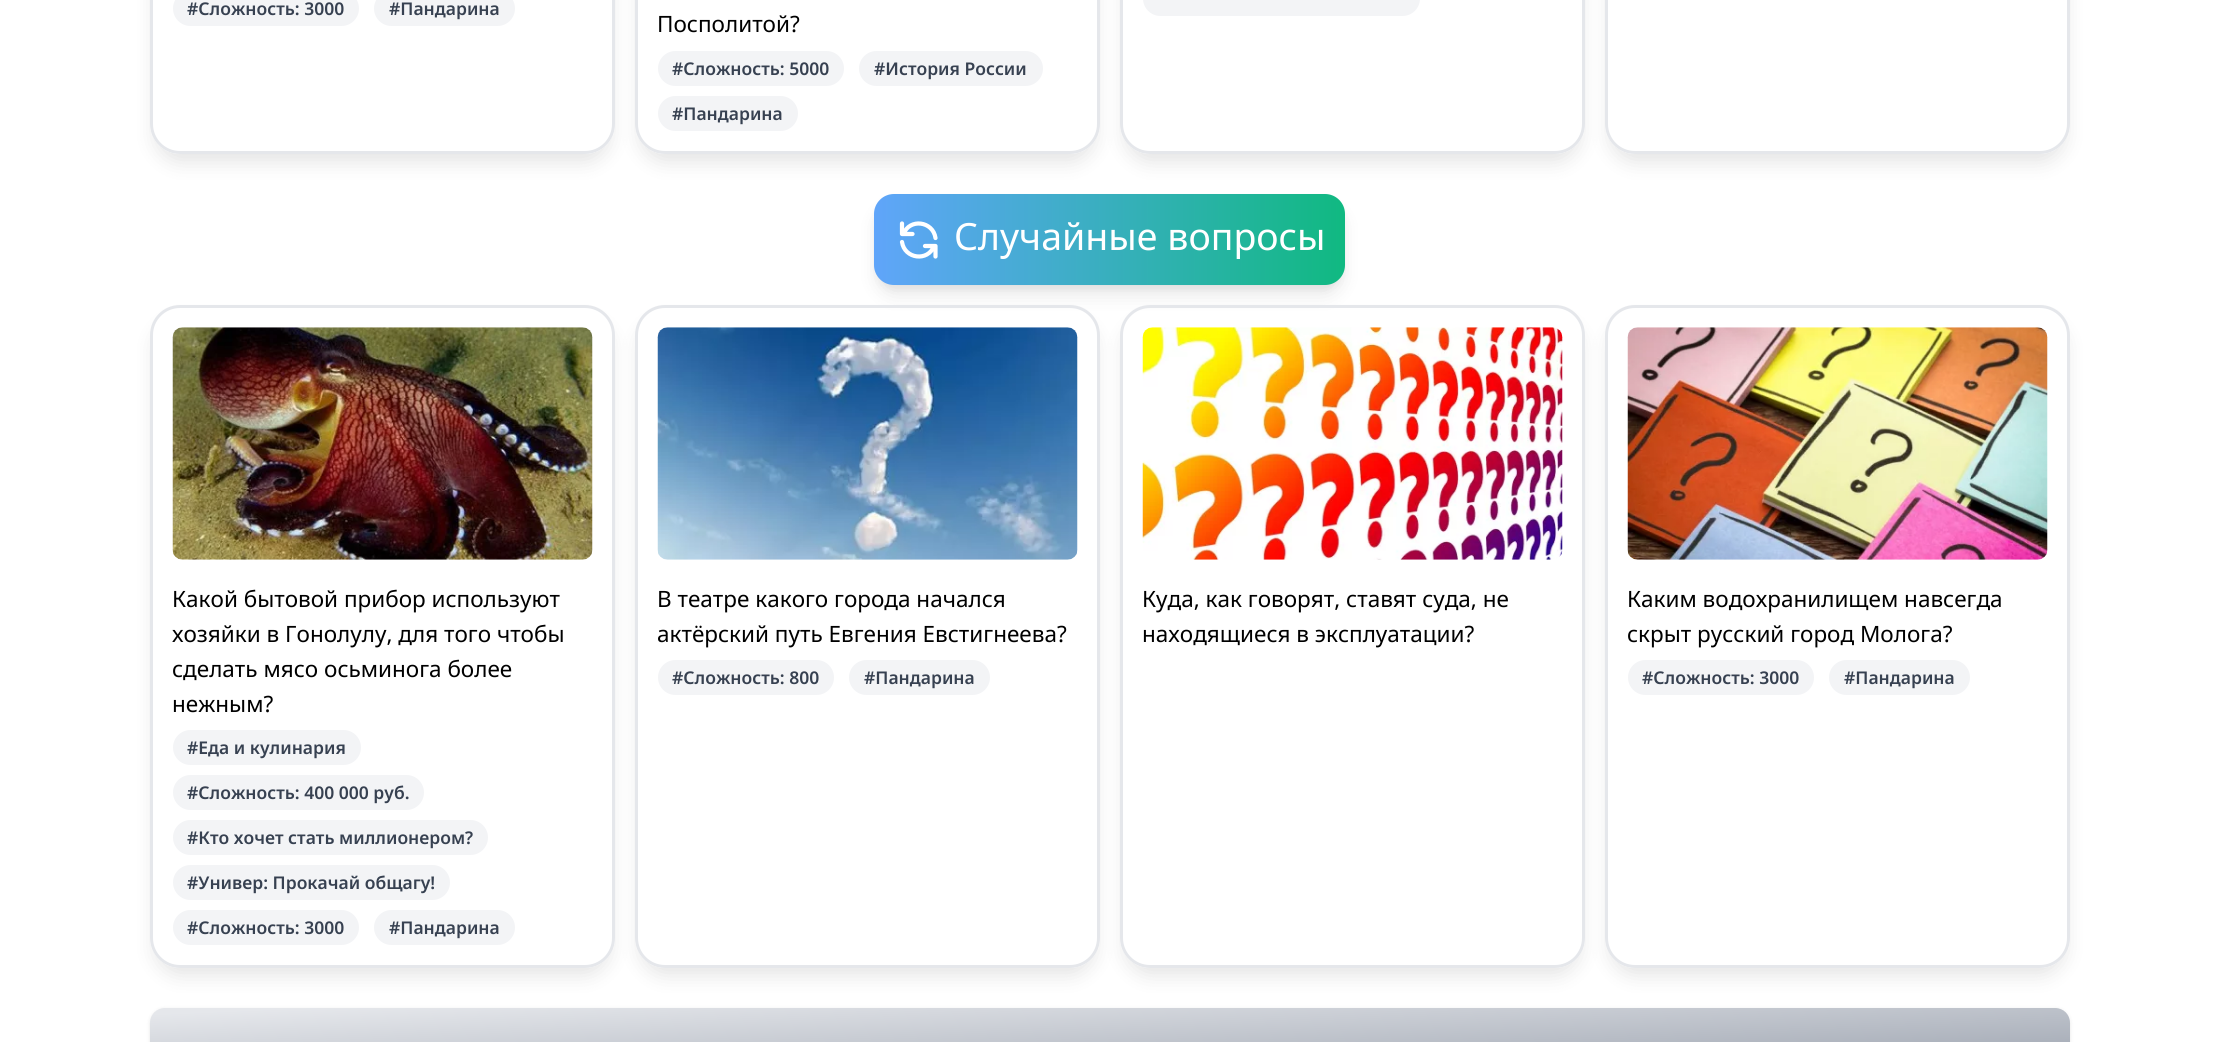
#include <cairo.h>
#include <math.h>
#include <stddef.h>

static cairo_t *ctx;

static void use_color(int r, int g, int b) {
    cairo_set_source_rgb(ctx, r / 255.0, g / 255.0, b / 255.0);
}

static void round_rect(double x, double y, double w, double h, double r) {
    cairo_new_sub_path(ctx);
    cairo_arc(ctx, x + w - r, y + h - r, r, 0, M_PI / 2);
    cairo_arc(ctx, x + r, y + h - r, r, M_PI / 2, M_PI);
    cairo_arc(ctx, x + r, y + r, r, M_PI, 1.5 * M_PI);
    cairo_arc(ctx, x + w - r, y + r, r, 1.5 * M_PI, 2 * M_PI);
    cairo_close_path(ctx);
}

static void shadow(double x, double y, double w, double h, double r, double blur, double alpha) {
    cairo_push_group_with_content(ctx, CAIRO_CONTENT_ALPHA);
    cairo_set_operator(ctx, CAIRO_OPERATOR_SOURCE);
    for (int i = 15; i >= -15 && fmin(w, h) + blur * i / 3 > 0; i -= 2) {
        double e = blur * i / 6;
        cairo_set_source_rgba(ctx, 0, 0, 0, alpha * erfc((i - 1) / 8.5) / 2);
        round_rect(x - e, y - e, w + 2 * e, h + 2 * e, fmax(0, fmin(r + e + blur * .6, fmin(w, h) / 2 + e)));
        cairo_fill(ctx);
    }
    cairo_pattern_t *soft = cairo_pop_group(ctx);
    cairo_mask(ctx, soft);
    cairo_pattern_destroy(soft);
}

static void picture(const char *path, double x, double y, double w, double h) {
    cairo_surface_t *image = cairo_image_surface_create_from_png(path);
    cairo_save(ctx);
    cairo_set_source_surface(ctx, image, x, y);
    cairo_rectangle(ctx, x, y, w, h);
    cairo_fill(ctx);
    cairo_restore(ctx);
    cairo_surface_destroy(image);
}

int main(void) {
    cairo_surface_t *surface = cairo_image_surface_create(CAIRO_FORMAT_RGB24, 2218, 1042);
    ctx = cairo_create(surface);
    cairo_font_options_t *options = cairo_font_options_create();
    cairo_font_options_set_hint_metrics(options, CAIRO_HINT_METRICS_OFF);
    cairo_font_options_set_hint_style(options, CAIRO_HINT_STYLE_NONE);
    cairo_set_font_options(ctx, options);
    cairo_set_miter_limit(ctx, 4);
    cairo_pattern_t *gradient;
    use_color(255, 255, 255);
    cairo_paint(ctx);
    cairo_save(ctx);
    cairo_set_fill_rule(ctx, CAIRO_FILL_RULE_EVEN_ODD);
    cairo_new_path(ctx);
    cairo_move_to(ctx, 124, 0);
    cairo_line_to(ctx, 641, 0);
    cairo_line_to(ctx, 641, 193);
    cairo_line_to(ctx, 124, 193);
    cairo_close_path(ctx);
    cairo_move_to(ctx, 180, -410);
    cairo_line_to(ctx, 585, -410);
    cairo_curve_to(ctx, 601.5, -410, 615, -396.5, 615, -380);
    cairo_line_to(ctx, 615, 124);
    cairo_curve_to(ctx, 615, 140.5, 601.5, 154, 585, 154);
    cairo_line_to(ctx, 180, 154);
    cairo_curve_to(ctx, 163.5, 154, 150, 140.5, 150, 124);
    cairo_line_to(ctx, 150, -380);
    cairo_curve_to(ctx, 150, -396.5, 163.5, -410, 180, -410);
    cairo_close_path(ctx);
    cairo_clip(ctx);
    use_color(0, 0, 0);
    shadow(154, -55, 457, 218, 26, 9.5, 0.1);
    cairo_restore(ctx);
    round_rect(151.5, -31.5, 462, 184, 28.5);
    use_color(229, 231, 235);
    cairo_set_line_width(ctx, 3);
    cairo_stroke(ctx);
    use_color(243, 244, 246);
    round_rect(173, -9, 186, 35, 17.5);
    cairo_fill(ctx);
    cairo_select_font_face(ctx, "Noto Sans SemiBold", CAIRO_FONT_SLANT_NORMAL, CAIRO_FONT_WEIGHT_NORMAL);
    cairo_set_font_size(ctx, 17.5);
    use_color(55, 65, 81);
    cairo_move_to(ctx, 187, 15);
    cairo_show_text(ctx, "#Сложность: 3000");
    use_color(243, 244, 246);
    round_rect(374, -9, 141, 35, 17.5);
    cairo_fill(ctx);
    use_color(55, 65, 81);
    cairo_move_to(ctx, 389, 15);
    cairo_show_text(ctx, "#Пандарина");
    cairo_save(ctx);
    cairo_set_fill_rule(ctx, CAIRO_FILL_RULE_EVEN_ODD);
    cairo_new_path(ctx);
    cairo_move_to(ctx, 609, 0);
    cairo_line_to(ctx, 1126, 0);
    cairo_line_to(ctx, 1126, 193);
    cairo_line_to(ctx, 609, 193);
    cairo_close_path(ctx);
    cairo_move_to(ctx, 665, -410);
    cairo_line_to(ctx, 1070, -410);
    cairo_curve_to(ctx, 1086.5, -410, 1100, -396.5, 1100, -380);
    cairo_line_to(ctx, 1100, 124);
    cairo_curve_to(ctx, 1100, 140.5, 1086.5, 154, 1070, 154);
    cairo_line_to(ctx, 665, 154);
    cairo_curve_to(ctx, 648.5, 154, 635, 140.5, 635, 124);
    cairo_line_to(ctx, 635, -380);
    cairo_curve_to(ctx, 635, -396.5, 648.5, -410, 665, -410);
    cairo_close_path(ctx);
    cairo_clip(ctx);
    use_color(0, 0, 0);
    shadow(639, -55, 457, 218, 26, 9.5, 0.1);
    cairo_restore(ctx);
    round_rect(636.5, -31.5, 462, 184, 28.5);
    use_color(229, 231, 235);
    cairo_stroke(ctx);
    cairo_save(ctx);
    cairo_set_fill_rule(ctx, CAIRO_FILL_RULE_EVEN_ODD);
    cairo_new_path(ctx);
    cairo_move_to(ctx, 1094, 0);
    cairo_line_to(ctx, 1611, 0);
    cairo_line_to(ctx, 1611, 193);
    cairo_line_to(ctx, 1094, 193);
    cairo_close_path(ctx);
    cairo_move_to(ctx, 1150, -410);
    cairo_line_to(ctx, 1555, -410);
    cairo_curve_to(ctx, 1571.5, -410, 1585, -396.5, 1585, -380);
    cairo_line_to(ctx, 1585, 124);
    cairo_curve_to(ctx, 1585, 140.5, 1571.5, 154, 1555, 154);
    cairo_line_to(ctx, 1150, 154);
    cairo_curve_to(ctx, 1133.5, 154, 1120, 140.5, 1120, 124);
    cairo_line_to(ctx, 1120, -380);
    cairo_curve_to(ctx, 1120, -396.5, 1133.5, -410, 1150, -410);
    cairo_close_path(ctx);
    cairo_clip(ctx);
    use_color(0, 0, 0);
    shadow(1124, -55, 457, 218, 26, 9.5, 0.1);
    cairo_restore(ctx);
    round_rect(1121.5, -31.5, 462, 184, 28.5);
    cairo_stroke(ctx);
    use_color(243, 244, 246);
    round_rect(1143, -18, 277, 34, 17.5);
    cairo_fill(ctx);
    cairo_save(ctx);
    cairo_set_fill_rule(ctx, CAIRO_FILL_RULE_EVEN_ODD);
    cairo_new_path(ctx);
    cairo_move_to(ctx, 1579, 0);
    cairo_line_to(ctx, 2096, 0);
    cairo_line_to(ctx, 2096, 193);
    cairo_line_to(ctx, 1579, 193);
    cairo_close_path(ctx);
    cairo_move_to(ctx, 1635, -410);
    cairo_line_to(ctx, 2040, -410);
    cairo_curve_to(ctx, 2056.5, -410, 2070, -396.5, 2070, -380);
    cairo_line_to(ctx, 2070, 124);
    cairo_curve_to(ctx, 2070, 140.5, 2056.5, 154, 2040, 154);
    cairo_line_to(ctx, 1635, 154);
    cairo_curve_to(ctx, 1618.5, 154, 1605, 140.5, 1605, 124);
    cairo_line_to(ctx, 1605, -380);
    cairo_curve_to(ctx, 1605, -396.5, 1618.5, -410, 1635, -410);
    cairo_close_path(ctx);
    cairo_clip(ctx);
    use_color(0, 0, 0);
    shadow(1609, -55, 457, 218, 26, 9.5, 0.1);
    cairo_restore(ctx);
    round_rect(1606.5, -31.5, 462, 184, 28.5);
    use_color(229, 231, 235);
    cairo_stroke(ctx);
    cairo_select_font_face(ctx, "Noto Sans", CAIRO_FONT_SLANT_NORMAL, CAIRO_FONT_WEIGHT_NORMAL);
    cairo_set_font_size(ctx, 22.5);
    use_color(0, 0, 0);
    cairo_move_to(ctx, 657, 32);
    cairo_show_text(ctx, "Посполитой?");
    use_color(243, 244, 246);
    round_rect(658, 51, 186, 35, 17.5);
    cairo_fill(ctx);
    cairo_select_font_face(ctx, "Noto Sans SemiBold", CAIRO_FONT_SLANT_NORMAL, CAIRO_FONT_WEIGHT_NORMAL);
    cairo_set_font_size(ctx, 17.5);
    use_color(55, 65, 81);
    cairo_move_to(ctx, 672, 75);
    cairo_show_text(ctx, "#Сложность: 5000");
    use_color(243, 244, 246);
    round_rect(859, 51, 184, 35, 17.5);
    cairo_fill(ctx);
    use_color(55, 65, 81);
    cairo_move_to(ctx, 874, 75);
    cairo_show_text(ctx, "#История России");
    use_color(243, 244, 246);
    round_rect(658, 96, 140, 35, 17.5);
    cairo_fill(ctx);
    use_color(55, 65, 81);
    cairo_move_to(ctx, 672, 120);
    cairo_show_text(ctx, "#Пандарина");
    use_color(0, 0, 0);
    shadow(876, 201, 467, 87, 18, 4, 0.05);
    shadow(878, 210, 463, 84, 16, 9.5, 0.1);
    gradient = cairo_pattern_create_linear(874, 239, 1345, 239);
    cairo_pattern_add_color_stop_rgba(gradient, 0, 0.376, 0.647, 0.98, 1);
    cairo_pattern_add_color_stop_rgba(gradient, 1, 0.063, 0.725, 0.506, 1);
    cairo_set_source(ctx, gradient);
    cairo_pattern_destroy(gradient);
    round_rect(874, 194, 471, 91, 20);
    cairo_fill(ctx);
    cairo_new_path(ctx);
    cairo_move_to(ctx, 902, 223.5);
    cairo_line_to(ctx, 902, 234);
    cairo_line_to(ctx, 903.5, 234);
    cairo_move_to(ctx, 935.5, 238);
    cairo_curve_to(ctx, 933, 221, 909.5, 218, 903.5, 234);
    cairo_move_to(ctx, 903.5, 234);
    cairo_line_to(ctx, 912.5, 234);
    cairo_move_to(ctx, 935.5, 256.5);
    cairo_line_to(ctx, 935.5, 246);
    cairo_line_to(ctx, 934, 246);
    cairo_move_to(ctx, 934, 246);
    cairo_curve_to(ctx, 928, 262, 904.5, 259, 902, 242);
    cairo_move_to(ctx, 934, 246);
    cairo_line_to(ctx, 925, 246);
    use_color(255, 255, 255);
    cairo_set_line_width(ctx, 4.2);
    cairo_set_line_cap(ctx, CAIRO_LINE_CAP_ROUND);
    cairo_set_line_join(ctx, CAIRO_LINE_JOIN_ROUND);
    cairo_stroke(ctx);
    cairo_select_font_face(ctx, "Noto Sans", CAIRO_FONT_SLANT_NORMAL, CAIRO_FONT_WEIGHT_NORMAL);
    cairo_set_font_size(ctx, 37.5);
    cairo_move_to(ctx, 954, 250);
    cairo_show_text(ctx, "Случайные вопросы");
    cairo_save(ctx);
    cairo_set_fill_rule(ctx, CAIRO_FILL_RULE_EVEN_ODD);
    cairo_new_path(ctx);
    cairo_move_to(ctx, 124, 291);
    cairo_line_to(ctx, 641, 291);
    cairo_line_to(ctx, 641, 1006);
    cairo_line_to(ctx, 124, 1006);
    cairo_close_path(ctx);
    cairo_move_to(ctx, 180, 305);
    cairo_line_to(ctx, 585, 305);
    cairo_curve_to(ctx, 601.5, 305, 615, 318.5, 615, 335);
    cairo_line_to(ctx, 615, 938);
    cairo_curve_to(ctx, 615, 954.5, 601.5, 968, 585, 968);
    cairo_line_to(ctx, 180, 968);
    cairo_curve_to(ctx, 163.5, 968, 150, 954.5, 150, 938);
    cairo_line_to(ctx, 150, 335);
    cairo_curve_to(ctx, 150, 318.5, 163.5, 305, 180, 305);
    cairo_close_path(ctx);
    cairo_clip(ctx);
    use_color(0, 0, 0);
    shadow(154, 321, 457, 655, 26, 9.5, 0.1);
    cairo_restore(ctx);
    round_rect(151.5, 306.5, 462, 660, 28.5);
    use_color(229, 231, 235);
    cairo_set_line_width(ctx, 3);
    cairo_set_line_cap(ctx, CAIRO_LINE_CAP_BUTT);
    cairo_set_line_join(ctx, CAIRO_LINE_JOIN_MITER);
    cairo_stroke(ctx);
    picture("img1.png", 172, 327, 421, 233);
    cairo_set_font_size(ctx, 22.5);
    use_color(0, 0, 0);
    cairo_move_to(ctx, 172, 607);
    cairo_show_text(ctx, "Какой бытовой прибор используют");
    cairo_move_to(ctx, 172, 642);
    cairo_show_text(ctx, "хозяйки в Гонолулу, для того чтобы");
    cairo_move_to(ctx, 172, 677);
    cairo_show_text(ctx, "сделать мясо осьминога более");
    cairo_move_to(ctx, 172, 712);
    cairo_show_text(ctx, "нежным?");
    use_color(243, 244, 246);
    round_rect(173, 730, 188, 35, 17.5);
    cairo_fill(ctx);
    cairo_select_font_face(ctx, "Noto Sans SemiBold", CAIRO_FONT_SLANT_NORMAL, CAIRO_FONT_WEIGHT_NORMAL);
    cairo_set_font_size(ctx, 17.5);
    use_color(55, 65, 81);
    cairo_move_to(ctx, 187, 754);
    cairo_show_text(ctx, "#Еда и кулинария");
    use_color(243, 244, 246);
    round_rect(173, 775, 251, 35, 17.5);
    cairo_fill(ctx);
    use_color(55, 65, 81);
    cairo_move_to(ctx, 187, 799);
    cairo_show_text(ctx, "#Сложность: 400 000 руб.");
    use_color(243, 244, 246);
    round_rect(173, 820, 315, 35, 17.5);
    cairo_fill(ctx);
    use_color(55, 65, 81);
    cairo_move_to(ctx, 187, 844);
    cairo_show_text(ctx, "#Кто хочет стать миллионером?");
    use_color(243, 244, 246);
    round_rect(173, 865, 277, 35, 17.5);
    cairo_fill(ctx);
    use_color(55, 65, 81);
    cairo_move_to(ctx, 187, 889);
    cairo_show_text(ctx, "#Универ: Прокачай общагу!");
    use_color(243, 244, 246);
    round_rect(173, 910, 186, 35, 17.5);
    cairo_fill(ctx);
    use_color(55, 65, 81);
    cairo_move_to(ctx, 187, 934);
    cairo_show_text(ctx, "#Сложность: 3000");
    use_color(243, 244, 246);
    round_rect(374, 910, 141, 35, 17.5);
    cairo_fill(ctx);
    use_color(55, 65, 81);
    cairo_move_to(ctx, 389, 934);
    cairo_show_text(ctx, "#Пандарина");
    cairo_save(ctx);
    cairo_set_fill_rule(ctx, CAIRO_FILL_RULE_EVEN_ODD);
    cairo_new_path(ctx);
    cairo_move_to(ctx, 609, 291);
    cairo_line_to(ctx, 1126, 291);
    cairo_line_to(ctx, 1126, 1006);
    cairo_line_to(ctx, 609, 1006);
    cairo_close_path(ctx);
    cairo_move_to(ctx, 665, 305);
    cairo_line_to(ctx, 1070, 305);
    cairo_curve_to(ctx, 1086.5, 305, 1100, 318.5, 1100, 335);
    cairo_line_to(ctx, 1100, 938);
    cairo_curve_to(ctx, 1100, 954.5, 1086.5, 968, 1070, 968);
    cairo_line_to(ctx, 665, 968);
    cairo_curve_to(ctx, 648.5, 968, 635, 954.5, 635, 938);
    cairo_line_to(ctx, 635, 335);
    cairo_curve_to(ctx, 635, 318.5, 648.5, 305, 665, 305);
    cairo_close_path(ctx);
    cairo_clip(ctx);
    use_color(0, 0, 0);
    shadow(639, 321, 457, 655, 26, 9.5, 0.1);
    cairo_restore(ctx);
    round_rect(636.5, 306.5, 462, 660, 28.5);
    use_color(229, 231, 235);
    cairo_stroke(ctx);
    picture("img2.png", 657, 327, 421, 233);
    cairo_select_font_face(ctx, "Noto Sans", CAIRO_FONT_SLANT_NORMAL, CAIRO_FONT_WEIGHT_NORMAL);
    cairo_set_font_size(ctx, 22.5);
    use_color(0, 0, 0);
    cairo_move_to(ctx, 657, 607);
    cairo_show_text(ctx, "В театре какого города начался");
    cairo_move_to(ctx, 657, 642);
    cairo_show_text(ctx, "актёрский путь Евгения Евстигнеева?");
    use_color(243, 244, 246);
    round_rect(658, 660, 176, 35, 17.5);
    cairo_fill(ctx);
    cairo_select_font_face(ctx, "Noto Sans SemiBold", CAIRO_FONT_SLANT_NORMAL, CAIRO_FONT_WEIGHT_NORMAL);
    cairo_set_font_size(ctx, 17.5);
    use_color(55, 65, 81);
    cairo_move_to(ctx, 672, 684);
    cairo_show_text(ctx, "#Сложность: 800");
    use_color(243, 244, 246);
    round_rect(849, 660, 141, 35, 17.5);
    cairo_fill(ctx);
    use_color(55, 65, 81);
    cairo_move_to(ctx, 864, 684);
    cairo_show_text(ctx, "#Пандарина");
    cairo_save(ctx);
    cairo_set_fill_rule(ctx, CAIRO_FILL_RULE_EVEN_ODD);
    cairo_new_path(ctx);
    cairo_move_to(ctx, 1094, 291);
    cairo_line_to(ctx, 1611, 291);
    cairo_line_to(ctx, 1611, 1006);
    cairo_line_to(ctx, 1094, 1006);
    cairo_close_path(ctx);
    cairo_move_to(ctx, 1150, 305);
    cairo_line_to(ctx, 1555, 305);
    cairo_curve_to(ctx, 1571.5, 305, 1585, 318.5, 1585, 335);
    cairo_line_to(ctx, 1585, 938);
    cairo_curve_to(ctx, 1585, 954.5, 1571.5, 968, 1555, 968);
    cairo_line_to(ctx, 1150, 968);
    cairo_curve_to(ctx, 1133.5, 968, 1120, 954.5, 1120, 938);
    cairo_line_to(ctx, 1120, 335);
    cairo_curve_to(ctx, 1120, 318.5, 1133.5, 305, 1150, 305);
    cairo_close_path(ctx);
    cairo_clip(ctx);
    use_color(0, 0, 0);
    shadow(1124, 321, 457, 655, 26, 9.5, 0.1);
    cairo_restore(ctx);
    round_rect(1121.5, 306.5, 462, 660, 28.5);
    use_color(229, 231, 235);
    cairo_stroke(ctx);
    picture("img3.png", 1142, 327, 421, 233);
    cairo_select_font_face(ctx, "Noto Sans", CAIRO_FONT_SLANT_NORMAL, CAIRO_FONT_WEIGHT_NORMAL);
    cairo_set_font_size(ctx, 22.5);
    use_color(0, 0, 0);
    cairo_move_to(ctx, 1142, 607);
    cairo_show_text(ctx, "Куда, как говорят, ставят суда, не");
    cairo_move_to(ctx, 1142, 642);
    cairo_show_text(ctx, "находящиеся в эксплуатации?");
    cairo_save(ctx);
    cairo_set_fill_rule(ctx, CAIRO_FILL_RULE_EVEN_ODD);
    cairo_new_path(ctx);
    cairo_move_to(ctx, 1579, 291);
    cairo_line_to(ctx, 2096, 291);
    cairo_line_to(ctx, 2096, 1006);
    cairo_line_to(ctx, 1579, 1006);
    cairo_close_path(ctx);
    cairo_move_to(ctx, 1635, 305);
    cairo_line_to(ctx, 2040, 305);
    cairo_curve_to(ctx, 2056.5, 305, 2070, 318.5, 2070, 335);
    cairo_line_to(ctx, 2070, 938);
    cairo_curve_to(ctx, 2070, 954.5, 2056.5, 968, 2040, 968);
    cairo_line_to(ctx, 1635, 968);
    cairo_curve_to(ctx, 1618.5, 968, 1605, 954.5, 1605, 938);
    cairo_line_to(ctx, 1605, 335);
    cairo_curve_to(ctx, 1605, 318.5, 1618.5, 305, 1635, 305);
    cairo_close_path(ctx);
    cairo_clip(ctx);
    use_color(0, 0, 0);
    shadow(1609, 321, 457, 655, 26, 9.5, 0.1);
    cairo_restore(ctx);
    round_rect(1606.5, 306.5, 462, 660, 28.5);
    use_color(229, 231, 235);
    cairo_stroke(ctx);
    picture("img4.png", 1627, 327, 421, 233);
    use_color(0, 0, 0);
    cairo_move_to(ctx, 1627, 607);
    cairo_show_text(ctx, "Каким водохранилищем навсегда");
    cairo_move_to(ctx, 1627, 642);
    cairo_show_text(ctx, "скрыт русский город Молога?");
    use_color(243, 244, 246);
    round_rect(1628, 660, 186, 35, 17.5);
    cairo_fill(ctx);
    cairo_select_font_face(ctx, "Noto Sans SemiBold", CAIRO_FONT_SLANT_NORMAL, CAIRO_FONT_WEIGHT_NORMAL);
    cairo_set_font_size(ctx, 17.5);
    use_color(55, 65, 81);
    cairo_move_to(ctx, 1642, 684);
    cairo_show_text(ctx, "#Сложность: 3000");
    use_color(243, 244, 246);
    round_rect(1829, 660, 141, 35, 17.5);
    cairo_fill(ctx);
    use_color(55, 65, 81);
    cairo_move_to(ctx, 1844, 684);
    cairo_show_text(ctx, "#Пандарина");
    use_color(0, 0, 0);
    shadow(150, 1009, 1920, 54, 15, 2, 0.1);
    gradient = cairo_pattern_create_linear(1107, 973, 1113, 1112);
    cairo_pattern_add_color_stop_rgba(gradient, 0, 0.898, 0.906, 0.922, 1);
    cairo_pattern_add_color_stop_rgba(gradient, 1, 0.612, 0.639, 0.686, 1);
    cairo_set_source(ctx, gradient);
    cairo_pattern_destroy(gradient);
    cairo_new_path(ctx);
    cairo_move_to(ctx, 165, 1008);
    cairo_line_to(ctx, 2055, 1008);
    cairo_curve_to(ctx, 2063.5, 1008, 2070, 1014.5, 2070, 1023);
    cairo_line_to(ctx, 2070, 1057);
    cairo_line_to(ctx, 150, 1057);
    cairo_line_to(ctx, 150, 1023);
    cairo_curve_to(ctx, 150, 1014.5, 156.5, 1008, 165, 1008);
    cairo_close_path(ctx);
    cairo_fill(ctx);
    cairo_surface_write_to_png(surface, "result.png");
    cairo_font_options_destroy(options);
    cairo_destroy(ctx);
    cairo_surface_destroy(surface);
    return 0;
}
